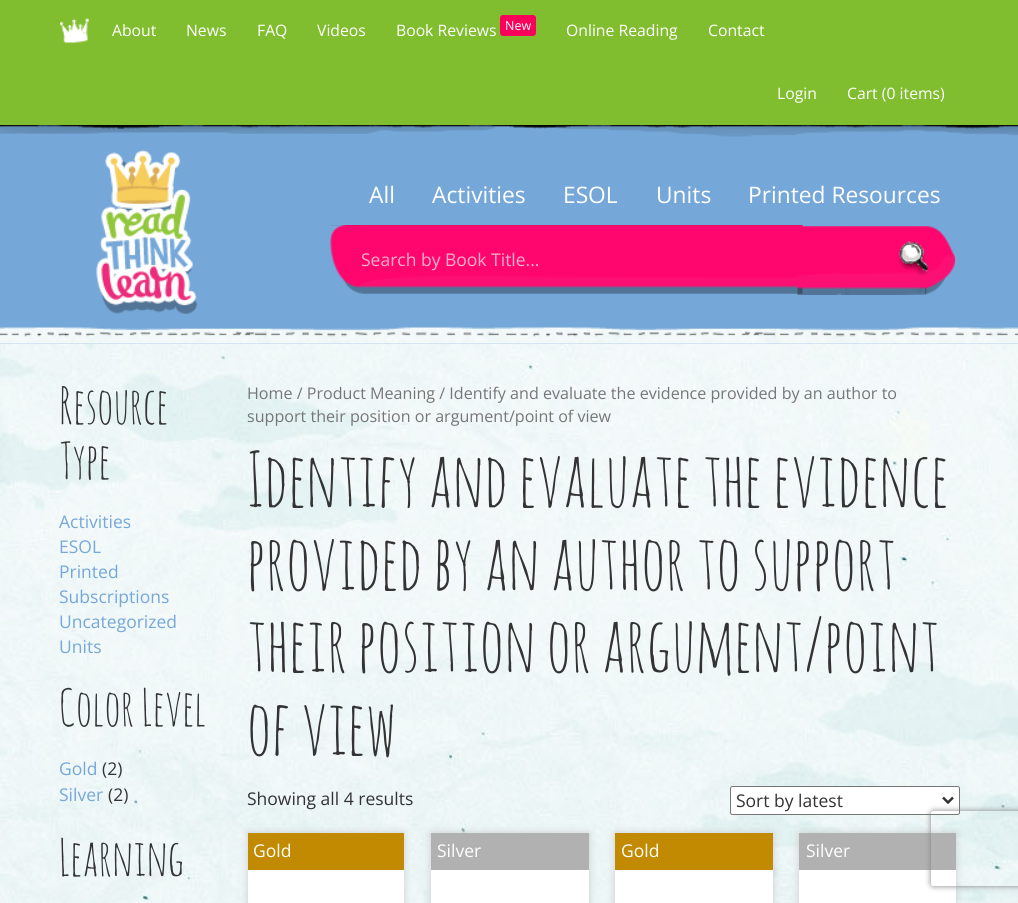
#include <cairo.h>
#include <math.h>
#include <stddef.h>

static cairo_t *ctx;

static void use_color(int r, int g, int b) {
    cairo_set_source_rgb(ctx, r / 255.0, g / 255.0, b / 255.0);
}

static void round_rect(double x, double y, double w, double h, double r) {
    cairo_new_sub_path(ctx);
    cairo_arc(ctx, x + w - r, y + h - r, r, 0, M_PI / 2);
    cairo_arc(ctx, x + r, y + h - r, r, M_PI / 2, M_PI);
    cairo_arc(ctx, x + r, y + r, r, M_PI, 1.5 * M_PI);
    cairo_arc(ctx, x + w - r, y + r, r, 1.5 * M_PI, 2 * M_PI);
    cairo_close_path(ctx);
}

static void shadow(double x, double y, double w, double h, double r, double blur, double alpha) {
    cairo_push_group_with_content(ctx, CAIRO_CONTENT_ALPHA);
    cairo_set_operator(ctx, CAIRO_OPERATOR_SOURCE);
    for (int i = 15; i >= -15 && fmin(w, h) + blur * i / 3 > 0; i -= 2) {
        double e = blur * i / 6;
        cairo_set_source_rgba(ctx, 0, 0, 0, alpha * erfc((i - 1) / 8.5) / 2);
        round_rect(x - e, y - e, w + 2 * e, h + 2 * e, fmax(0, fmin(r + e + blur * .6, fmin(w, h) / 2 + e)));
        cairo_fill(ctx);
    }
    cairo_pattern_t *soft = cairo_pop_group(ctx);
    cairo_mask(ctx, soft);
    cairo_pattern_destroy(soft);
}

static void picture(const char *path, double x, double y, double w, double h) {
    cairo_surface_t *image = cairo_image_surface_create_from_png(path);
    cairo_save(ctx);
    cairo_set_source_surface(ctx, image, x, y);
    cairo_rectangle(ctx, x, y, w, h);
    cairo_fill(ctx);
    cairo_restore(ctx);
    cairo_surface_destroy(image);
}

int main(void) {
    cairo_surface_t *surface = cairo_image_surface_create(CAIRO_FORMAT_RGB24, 1018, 903);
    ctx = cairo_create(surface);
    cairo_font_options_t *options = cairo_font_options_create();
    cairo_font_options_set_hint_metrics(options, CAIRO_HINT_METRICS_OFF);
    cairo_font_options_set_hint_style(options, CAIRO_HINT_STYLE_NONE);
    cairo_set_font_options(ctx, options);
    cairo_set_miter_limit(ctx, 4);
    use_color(255, 255, 255);
    cairo_paint(ctx);
    picture("img1.png", 0, 344, 1018, 559);
    use_color(128, 189, 47);
    cairo_rectangle(ctx, 0, 0, 1018, 125);
    cairo_fill(ctx);
    picture("img2.png", 60, 18, 29, 25);
    cairo_select_font_face(ctx, "Open Sans", CAIRO_FONT_SLANT_NORMAL, CAIRO_FONT_WEIGHT_NORMAL);
    cairo_set_font_size(ctx, 15.75);
    use_color(255, 255, 255);
    cairo_move_to(ctx, 112, 36);
    cairo_show_text(ctx, "About");
    cairo_move_to(ctx, 186, 36);
    cairo_show_text(ctx, "News");
    cairo_move_to(ctx, 257, 36);
    cairo_show_text(ctx, "FAQ");
    cairo_move_to(ctx, 317, 36);
    cairo_show_text(ctx, "Videos");
    cairo_move_to(ctx, 396, 36);
    cairo_show_text(ctx, "Book Reviews");
    use_color(251, 0, 90);
    round_rect(500, 15, 36, 21, 3);
    cairo_fill(ctx);
    cairo_set_font_size(ctx, 12.5);
    use_color(255, 255, 255);
    cairo_move_to(ctx, 505, 30);
    cairo_show_text(ctx, "New");
    cairo_set_font_size(ctx, 15.75);
    cairo_move_to(ctx, 566, 36);
    cairo_show_text(ctx, "Online Reading");
    cairo_move_to(ctx, 708, 36);
    cairo_show_text(ctx, "Contact");
    cairo_move_to(ctx, 777, 99);
    cairo_show_text(ctx, "Login");
    cairo_move_to(ctx, 847, 99);
    cairo_show_text(ctx, "Cart (0 items)");
    use_color(117, 167, 216);
    cairo_rectangle(ctx, 0, 125, 1018, 219);
    cairo_fill(ctx);
    picture("img3.png", 0, 125, 1018, 12);
    picture("img4.png", 0, 327, 1018, 17);
    picture("img5.png", 96, 150, 102, 164);
    cairo_set_font_size(ctx, 22.75);
    use_color(255, 255, 255);
    cairo_move_to(ctx, 369, 203);
    cairo_show_text(ctx, "All");
    cairo_move_to(ctx, 432, 203);
    cairo_show_text(ctx, "Activities");
    cairo_move_to(ctx, 563, 203);
    cairo_show_text(ctx, "ESOL");
    cairo_move_to(ctx, 656, 203);
    cairo_show_text(ctx, "Units");
    cairo_move_to(ctx, 748, 203);
    cairo_show_text(ctx, "Printed Resources");
    picture("img6.png", 330, 225, 473, 69);
    cairo_set_source_rgba(ctx, 0, 0, 0, 0.07);
    cairo_rectangle(ctx, 330, 225, 473, 1);
    cairo_fill(ctx);
    cairo_set_font_size(ctx, 17.5);
    use_color(255, 175, 203);
    cairo_move_to(ctx, 361, 266);
    cairo_show_text(ctx, "Search by Book Title...");
    picture("img7.png", 797, 226, 158, 69);
    cairo_select_font_face(ctx, "Amatic SC", CAIRO_FONT_SLANT_NORMAL, CAIRO_FONT_WEIGHT_NORMAL);
    cairo_set_font_size(ctx, 50);
    use_color(51, 51, 51);
    cairo_move_to(ctx, 59, 424);
    cairo_show_text(ctx, "Resource");
    cairo_move_to(ctx, 59, 479);
    cairo_show_text(ctx, "Type");
    cairo_select_font_face(ctx, "Open Sans", CAIRO_FONT_SLANT_NORMAL, CAIRO_FONT_WEIGHT_NORMAL);
    cairo_set_font_size(ctx, 17.5);
    use_color(117, 167, 216);
    cairo_move_to(ctx, 59, 528);
    cairo_show_text(ctx, "Activities");
    cairo_move_to(ctx, 59, 553);
    cairo_show_text(ctx, "ESOL");
    cairo_move_to(ctx, 59, 578);
    cairo_show_text(ctx, "Printed");
    cairo_move_to(ctx, 59, 603);
    cairo_show_text(ctx, "Subscriptions");
    cairo_move_to(ctx, 59, 628);
    cairo_show_text(ctx, "Uncategorized");
    cairo_move_to(ctx, 59, 653);
    cairo_show_text(ctx, "Units");
    cairo_select_font_face(ctx, "Amatic SC", CAIRO_FONT_SLANT_NORMAL, CAIRO_FONT_WEIGHT_NORMAL);
    cairo_set_font_size(ctx, 50);
    use_color(51, 51, 51);
    cairo_move_to(ctx, 59, 726);
    cairo_show_text(ctx, "Color Level");
    cairo_select_font_face(ctx, "Open Sans", CAIRO_FONT_SLANT_NORMAL, CAIRO_FONT_WEIGHT_NORMAL);
    cairo_set_font_size(ctx, 17.5);
    use_color(117, 167, 216);
    cairo_move_to(ctx, 59, 775);
    cairo_show_text(ctx, "Gold");
    use_color(51, 51, 51);
    cairo_move_to(ctx, 102, 775);
    cairo_show_text(ctx, "(2)");
    use_color(117, 167, 216);
    cairo_move_to(ctx, 59, 801);
    cairo_show_text(ctx, "Silver");
    use_color(51, 51, 51);
    cairo_move_to(ctx, 108, 801);
    cairo_show_text(ctx, "(2)");
    cairo_select_font_face(ctx, "Amatic SC", CAIRO_FONT_SLANT_NORMAL, CAIRO_FONT_WEIGHT_NORMAL);
    cairo_set_font_size(ctx, 50);
    cairo_move_to(ctx, 59, 876);
    cairo_show_text(ctx, "Learning");
    cairo_select_font_face(ctx, "Open Sans", CAIRO_FONT_SLANT_NORMAL, CAIRO_FONT_WEIGHT_NORMAL);
    cairo_set_font_size(ctx, 16.1);
    use_color(118, 118, 118);
    cairo_move_to(ctx, 247, 399);
    cairo_show_text(ctx, "Home / Product Meaning / Identify and evaluate the evidence provided by an author to");
    cairo_move_to(ctx, 247, 422);
    cairo_show_text(ctx, "support their position or argument/point of view");
    cairo_select_font_face(ctx, "Amatic SC", CAIRO_FONT_SLANT_NORMAL, CAIRO_FONT_WEIGHT_NORMAL);
    cairo_set_font_size(ctx, 75);
    use_color(51, 51, 51);
    cairo_move_to(ctx, 247, 507);
    cairo_show_text(ctx, "Identify and evaluate the evidence");
    cairo_move_to(ctx, 247, 590);
    cairo_show_text(ctx, "provided by an author to support");
    cairo_move_to(ctx, 247, 672);
    cairo_show_text(ctx, "their position or argument/point");
    cairo_move_to(ctx, 247, 755);
    cairo_show_text(ctx, "of view");
    cairo_select_font_face(ctx, "Open Sans", CAIRO_FONT_SLANT_NORMAL, CAIRO_FONT_WEIGHT_NORMAL);
    cairo_set_font_size(ctx, 17.5);
    cairo_move_to(ctx, 247, 805);
    cairo_show_text(ctx, "Showing all 4 results");
    use_color(255, 255, 255);
    round_rect(730.5, 786.5, 229, 28, 2);
    cairo_fill_preserve(ctx);
    use_color(118, 118, 118);
    cairo_set_line_width(ctx, 1);
    cairo_stroke(ctx);
    cairo_new_path(ctx);
    cairo_move_to(ctx, 943, 797.5);
    cairo_line_to(ctx, 948, 802.5);
    cairo_line_to(ctx, 953, 797.5);
    use_color(51, 51, 51);
    cairo_set_line_width(ctx, 2.5);
    cairo_stroke(ctx);
    cairo_move_to(ctx, 736, 807);
    cairo_show_text(ctx, "Sort by latest");
    use_color(204, 204, 204);
    shadow(248, 833, 156, 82, 0, 4, 1);
    use_color(255, 255, 255);
    cairo_rectangle(ctx, 248, 870, 156, 33);
    cairo_fill(ctx);
    use_color(193, 138, 0);
    cairo_rectangle(ctx, 248, 833, 156, 37);
    cairo_fill(ctx);
    use_color(255, 255, 255);
    cairo_move_to(ctx, 253, 857);
    cairo_show_text(ctx, "Gold");
    use_color(204, 204, 204);
    shadow(431, 833, 158, 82, 0, 4, 1);
    use_color(255, 255, 255);
    cairo_rectangle(ctx, 431, 870, 158, 33);
    cairo_fill(ctx);
    use_color(177, 177, 177);
    cairo_rectangle(ctx, 431, 833, 158, 37);
    cairo_fill(ctx);
    use_color(255, 255, 255);
    cairo_move_to(ctx, 437, 857);
    cairo_show_text(ctx, "Silver");
    use_color(204, 204, 204);
    shadow(615, 833, 158, 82, 0, 4, 1);
    use_color(255, 255, 255);
    cairo_rectangle(ctx, 615, 870, 158, 33);
    cairo_fill(ctx);
    use_color(193, 138, 0);
    cairo_rectangle(ctx, 615, 833, 158, 37);
    cairo_fill(ctx);
    use_color(255, 255, 255);
    cairo_move_to(ctx, 621, 857);
    cairo_show_text(ctx, "Gold");
    use_color(204, 204, 204);
    shadow(799, 833, 157, 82, 0, 4, 1);
    use_color(255, 255, 255);
    cairo_rectangle(ctx, 799, 870, 157, 33);
    cairo_fill(ctx);
    use_color(177, 177, 177);
    cairo_rectangle(ctx, 799, 833, 157, 37);
    cairo_fill(ctx);
    use_color(255, 255, 255);
    cairo_move_to(ctx, 806, 857);
    cairo_show_text(ctx, "Silver");
    cairo_save(ctx);
    cairo_set_fill_rule(ctx, CAIRO_FILL_RULE_EVEN_ODD);
    cairo_new_path(ctx);
    cairo_move_to(ctx, 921, 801);
    cairo_line_to(ctx, 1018, 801);
    cairo_line_to(ctx, 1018, 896);
    cairo_line_to(ctx, 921, 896);
    cairo_close_path(ctx);
    cairo_move_to(ctx, 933.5, 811);
    cairo_line_to(ctx, 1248.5, 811);
    cairo_curve_to(ctx, 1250, 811, 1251, 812, 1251, 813.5);
    cairo_line_to(ctx, 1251, 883.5);
    cairo_curve_to(ctx, 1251, 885, 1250, 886, 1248.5, 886);
    cairo_line_to(ctx, 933.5, 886);
    cairo_curve_to(ctx, 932, 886, 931, 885, 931, 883.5);
    cairo_line_to(ctx, 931, 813.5);
    cairo_curve_to(ctx, 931, 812, 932, 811, 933.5, 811);
    cairo_close_path(ctx);
    cairo_clip(ctx);
    use_color(128, 128, 128);
    shadow(931, 811, 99, 75, 2.5, 3, 1);
    cairo_restore(ctx);
    cairo_surface_write_to_png(surface, "result.png");
    cairo_font_options_destroy(options);
    cairo_destroy(ctx);
    cairo_surface_destroy(surface);
    return 0;
}
